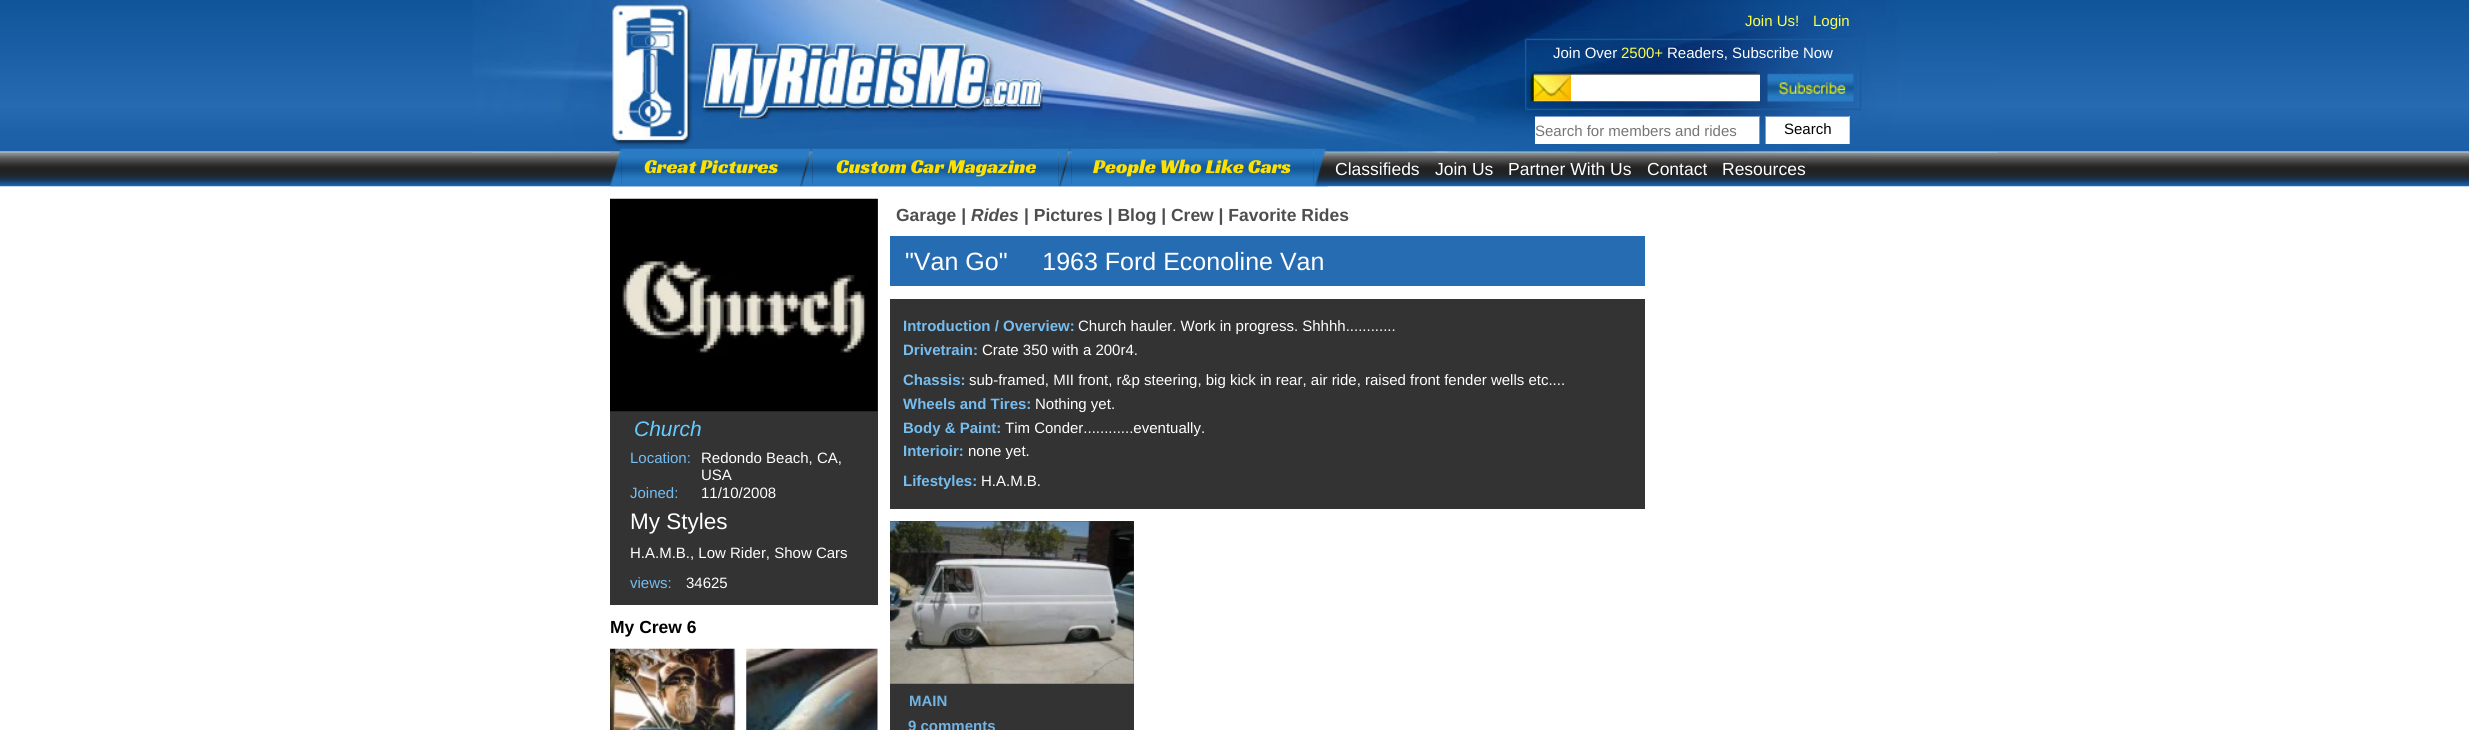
#include <cairo.h>
#include <math.h>
#include <stddef.h>

static cairo_t *ctx;

static void use_color(int r, int g, int b) {
    cairo_set_source_rgb(ctx, r / 255.0, g / 255.0, b / 255.0);
}

static void picture(const char *path, double x, double y, double w, double h) {
    cairo_surface_t *image = cairo_image_surface_create_from_png(path);
    cairo_save(ctx);
    cairo_set_source_surface(ctx, image, x, y);
    cairo_rectangle(ctx, x, y, w, h);
    cairo_fill(ctx);
    cairo_restore(ctx);
    cairo_surface_destroy(image);
}

int main(void) {
    cairo_surface_t *surface = cairo_image_surface_create(CAIRO_FORMAT_RGB24, 2469, 730);
    ctx = cairo_create(surface);
    cairo_font_options_t *options = cairo_font_options_create();
    cairo_font_options_set_hint_metrics(options, CAIRO_HINT_METRICS_OFF);
    cairo_font_options_set_hint_style(options, CAIRO_HINT_STYLE_NONE);
    cairo_set_font_options(ctx, options);
    cairo_set_miter_limit(ctx, 4);
    use_color(255, 255, 255);
    cairo_paint(ctx);
    picture("img1.png", 0, 0, 2469, 187);
    picture("img2.png", 472, 0, 1526, 153);
    cairo_select_font_face(ctx, "Liberation Sans", CAIRO_FONT_SLANT_NORMAL, CAIRO_FONT_WEIGHT_NORMAL);
    cairo_set_font_size(ctx, 15);
    use_color(252, 255, 75);
    cairo_move_to(ctx, 1745, 26);
    cairo_show_text(ctx, "Join Us!");
    cairo_move_to(ctx, 1813, 26);
    cairo_show_text(ctx, "Login");
    use_color(255, 255, 255);
    cairo_move_to(ctx, 1553, 58);
    cairo_show_text(ctx, "Join Over");
    use_color(252, 255, 75);
    cairo_move_to(ctx, 1621, 58);
    cairo_show_text(ctx, "2500+");
    use_color(255, 255, 255);
    cairo_move_to(ctx, 1667, 58);
    cairo_show_text(ctx, "Readers, Subscribe Now");
    picture("img3.png", 1529, 71, 231, 31);
    cairo_rectangle(ctx, 1571, 75, 189, 26);
    cairo_fill(ctx);
    picture("img4.png", 1767, 73, 87, 30);
    cairo_rectangle(ctx, 1535, 117, 224, 27);
    cairo_fill(ctx);
    use_color(119, 156, 198);
    cairo_rectangle(ctx, 1535, 116, 225, 1);
    cairo_fill(ctx);
    cairo_rectangle(ctx, 1759, 116, 1, 28);
    cairo_fill(ctx);
    use_color(117, 117, 117);
    cairo_move_to(ctx, 1535, 136);
    cairo_show_text(ctx, "Search for members and rides");
    use_color(255, 255, 255);
    cairo_rectangle(ctx, 1766, 117, 83, 27);
    cairo_fill(ctx);
    use_color(119, 156, 198);
    cairo_rectangle(ctx, 1765, 116, 85, 1);
    cairo_fill(ctx);
    use_color(189, 209, 230);
    cairo_rectangle(ctx, 1849, 116, 1, 28);
    cairo_fill(ctx);
    use_color(119, 156, 198);
    cairo_rectangle(ctx, 1765, 116, 1, 28);
    cairo_fill(ctx);
    use_color(0, 0, 0);
    cairo_move_to(ctx, 1784, 134);
    cairo_show_text(ctx, "Search");
    picture("img5.png", 610, 148, 12, 39);
    picture("img6.png", 621, 148, 179, 39);
    cairo_select_font_face(ctx, "Racing Sans One", CAIRO_FONT_SLANT_NORMAL, CAIRO_FONT_WEIGHT_NORMAL);
    cairo_set_font_size(ctx, 20);
    use_color(255, 225, 0);
    cairo_move_to(ctx, 644, 173);
    cairo_show_text(ctx, "Great Pictures");
    picture("img7.png", 800, 148, 13, 39);
    picture("img8.png", 812, 148, 247, 39);
    cairo_move_to(ctx, 836, 173);
    cairo_show_text(ctx, "Custom Car Magazine");
    picture("img9.png", 1058, 148, 14, 39);
    picture("img10.png", 1071, 148, 243, 39);
    cairo_move_to(ctx, 1093, 173);
    cairo_show_text(ctx, "People Who Like Cars");
    picture("img11.png", 1313, 148, 15, 39);
    cairo_select_font_face(ctx, "Liberation Sans", CAIRO_FONT_SLANT_NORMAL, CAIRO_FONT_WEIGHT_NORMAL);
    cairo_set_font_size(ctx, 17.5);
    use_color(255, 255, 255);
    cairo_move_to(ctx, 1335, 175);
    cairo_show_text(ctx, "Classifieds");
    cairo_move_to(ctx, 1435, 175);
    cairo_show_text(ctx, "Join Us");
    cairo_move_to(ctx, 1508, 175);
    cairo_show_text(ctx, "Partner With Us");
    cairo_move_to(ctx, 1647, 175);
    cairo_show_text(ctx, "Contact");
    cairo_move_to(ctx, 1722, 175);
    cairo_show_text(ctx, "Resources");
    use_color(51, 51, 51);
    cairo_rectangle(ctx, 610, 199, 268, 406);
    cairo_fill(ctx);
    picture("img12.png", 610, 198, 268, 214);
    cairo_select_font_face(ctx, "Liberation Sans", CAIRO_FONT_SLANT_ITALIC, CAIRO_FONT_WEIGHT_NORMAL);
    cairo_set_font_size(ctx, 21);
    use_color(102, 204, 255);
    cairo_move_to(ctx, 634, 436);
    cairo_show_text(ctx, "Church");
    cairo_select_font_face(ctx, "Liberation Sans", CAIRO_FONT_SLANT_NORMAL, CAIRO_FONT_WEIGHT_NORMAL);
    cairo_set_font_size(ctx, 15);
    use_color(118, 189, 240);
    cairo_move_to(ctx, 630, 463);
    cairo_show_text(ctx, "Location:");
    use_color(255, 255, 255);
    cairo_move_to(ctx, 701, 463);
    cairo_show_text(ctx, "Redondo Beach, CA,");
    cairo_move_to(ctx, 701, 480);
    cairo_show_text(ctx, "USA");
    use_color(118, 189, 240);
    cairo_move_to(ctx, 630, 498);
    cairo_show_text(ctx, "Joined:");
    use_color(255, 255, 255);
    cairo_move_to(ctx, 701, 498);
    cairo_show_text(ctx, "11/10/2008");
    cairo_set_font_size(ctx, 22.5);
    cairo_move_to(ctx, 630, 529);
    cairo_show_text(ctx, "My Styles");
    cairo_set_font_size(ctx, 15);
    cairo_move_to(ctx, 630, 558);
    cairo_show_text(ctx, "H.A.M.B., Low Rider, Show Cars");
    use_color(118, 189, 240);
    cairo_move_to(ctx, 630, 588);
    cairo_show_text(ctx, "views:");
    use_color(255, 255, 255);
    cairo_move_to(ctx, 686, 588);
    cairo_show_text(ctx, "34625");
    cairo_select_font_face(ctx, "Liberation Sans", CAIRO_FONT_SLANT_NORMAL, CAIRO_FONT_WEIGHT_BOLD);
    cairo_set_font_size(ctx, 17.5);
    use_color(0, 0, 0);
    cairo_move_to(ctx, 610, 633);
    cairo_show_text(ctx, "My Crew 6");
    picture("img13.png", 610, 648, 130, 82);
    picture("img14.png", 746, 648, 132, 82);
    use_color(78, 78, 78);
    cairo_move_to(ctx, 896, 221);
    cairo_show_text(ctx, "Garage |");
    cairo_select_font_face(ctx, "Liberation Sans", CAIRO_FONT_SLANT_ITALIC, CAIRO_FONT_WEIGHT_BOLD);
    cairo_move_to(ctx, 971, 221);
    cairo_show_text(ctx, "Rides");
    cairo_select_font_face(ctx, "Liberation Sans", CAIRO_FONT_SLANT_NORMAL, CAIRO_FONT_WEIGHT_BOLD);
    cairo_move_to(ctx, 1024, 221);
    cairo_show_text(ctx, "| Pictures | Blog | Crew | Favorite Rides");
    use_color(38, 108, 179);
    cairo_rectangle(ctx, 890, 236, 755, 50);
    cairo_fill(ctx);
    cairo_select_font_face(ctx, "Liberation Sans", CAIRO_FONT_SLANT_NORMAL, CAIRO_FONT_WEIGHT_NORMAL);
    cairo_set_font_size(ctx, 25);
    use_color(255, 255, 255);
    cairo_move_to(ctx, 905, 270);
    cairo_show_text(ctx, "\"Van Go\"     1963 Ford Econoline Van");
    use_color(51, 51, 51);
    cairo_rectangle(ctx, 890, 299, 755, 210);
    cairo_fill(ctx);
    cairo_select_font_face(ctx, "Liberation Sans", CAIRO_FONT_SLANT_NORMAL, CAIRO_FONT_WEIGHT_BOLD);
    cairo_set_font_size(ctx, 15);
    use_color(118, 189, 240);
    cairo_move_to(ctx, 903, 331);
    cairo_show_text(ctx, "Introduction / Overview:");
    cairo_select_font_face(ctx, "Liberation Sans", CAIRO_FONT_SLANT_NORMAL, CAIRO_FONT_WEIGHT_NORMAL);
    use_color(255, 255, 255);
    cairo_move_to(ctx, 1078, 331);
    cairo_show_text(ctx, "Church hauler. Work in progress. Shhhh............");
    cairo_select_font_face(ctx, "Liberation Sans", CAIRO_FONT_SLANT_NORMAL, CAIRO_FONT_WEIGHT_BOLD);
    use_color(118, 189, 240);
    cairo_move_to(ctx, 903, 355);
    cairo_show_text(ctx, "Drivetrain:");
    cairo_select_font_face(ctx, "Liberation Sans", CAIRO_FONT_SLANT_NORMAL, CAIRO_FONT_WEIGHT_NORMAL);
    use_color(255, 255, 255);
    cairo_move_to(ctx, 982, 355);
    cairo_show_text(ctx, "Crate 350 with a 200r4.");
    cairo_select_font_face(ctx, "Liberation Sans", CAIRO_FONT_SLANT_NORMAL, CAIRO_FONT_WEIGHT_BOLD);
    use_color(118, 189, 240);
    cairo_move_to(ctx, 903, 385);
    cairo_show_text(ctx, "Chassis:");
    cairo_select_font_face(ctx, "Liberation Sans", CAIRO_FONT_SLANT_NORMAL, CAIRO_FONT_WEIGHT_NORMAL);
    use_color(255, 255, 255);
    cairo_move_to(ctx, 969, 385);
    cairo_show_text(ctx, "sub-framed, MII front, r&p steering, big kick in rear, air ride, raised front fender wells etc....");
    cairo_select_font_face(ctx, "Liberation Sans", CAIRO_FONT_SLANT_NORMAL, CAIRO_FONT_WEIGHT_BOLD);
    use_color(118, 189, 240);
    cairo_move_to(ctx, 903, 409);
    cairo_show_text(ctx, "Wheels and Tires:");
    cairo_select_font_face(ctx, "Liberation Sans", CAIRO_FONT_SLANT_NORMAL, CAIRO_FONT_WEIGHT_NORMAL);
    use_color(255, 255, 255);
    cairo_move_to(ctx, 1035, 409);
    cairo_show_text(ctx, "Nothing yet.");
    cairo_select_font_face(ctx, "Liberation Sans", CAIRO_FONT_SLANT_NORMAL, CAIRO_FONT_WEIGHT_BOLD);
    use_color(118, 189, 240);
    cairo_move_to(ctx, 903, 433);
    cairo_show_text(ctx, "Body & Paint:");
    cairo_select_font_face(ctx, "Liberation Sans", CAIRO_FONT_SLANT_NORMAL, CAIRO_FONT_WEIGHT_NORMAL);
    use_color(255, 255, 255);
    cairo_move_to(ctx, 1005, 433);
    cairo_show_text(ctx, "Tim Conder............eventually.");
    cairo_select_font_face(ctx, "Liberation Sans", CAIRO_FONT_SLANT_NORMAL, CAIRO_FONT_WEIGHT_BOLD);
    use_color(118, 189, 240);
    cairo_move_to(ctx, 903, 456);
    cairo_show_text(ctx, "Interioir:");
    cairo_select_font_face(ctx, "Liberation Sans", CAIRO_FONT_SLANT_NORMAL, CAIRO_FONT_WEIGHT_NORMAL);
    use_color(255, 255, 255);
    cairo_move_to(ctx, 968, 456);
    cairo_show_text(ctx, "none yet.");
    cairo_select_font_face(ctx, "Liberation Sans", CAIRO_FONT_SLANT_NORMAL, CAIRO_FONT_WEIGHT_BOLD);
    use_color(118, 189, 240);
    cairo_move_to(ctx, 903, 486);
    cairo_show_text(ctx, "Lifestyles:");
    cairo_select_font_face(ctx, "Liberation Sans", CAIRO_FONT_SLANT_NORMAL, CAIRO_FONT_WEIGHT_NORMAL);
    use_color(255, 255, 255);
    cairo_move_to(ctx, 981, 486);
    cairo_show_text(ctx, "H.A.M.B.");
    use_color(51, 51, 51);
    cairo_rectangle(ctx, 890, 521, 244, 209);
    cairo_fill(ctx);
    picture("img15.png", 890, 521, 244, 163);
    cairo_select_font_face(ctx, "Liberation Sans", CAIRO_FONT_SLANT_NORMAL, CAIRO_FONT_WEIGHT_BOLD);
    use_color(113, 179, 227);
    cairo_move_to(ctx, 909, 706);
    cairo_show_text(ctx, "MAIN");
    cairo_move_to(ctx, 908, 731);
    cairo_show_text(ctx, "9 comments");
    cairo_surface_write_to_png(surface, "result.png");
    cairo_font_options_destroy(options);
    cairo_destroy(ctx);
    cairo_surface_destroy(surface);
    return 0;
}
